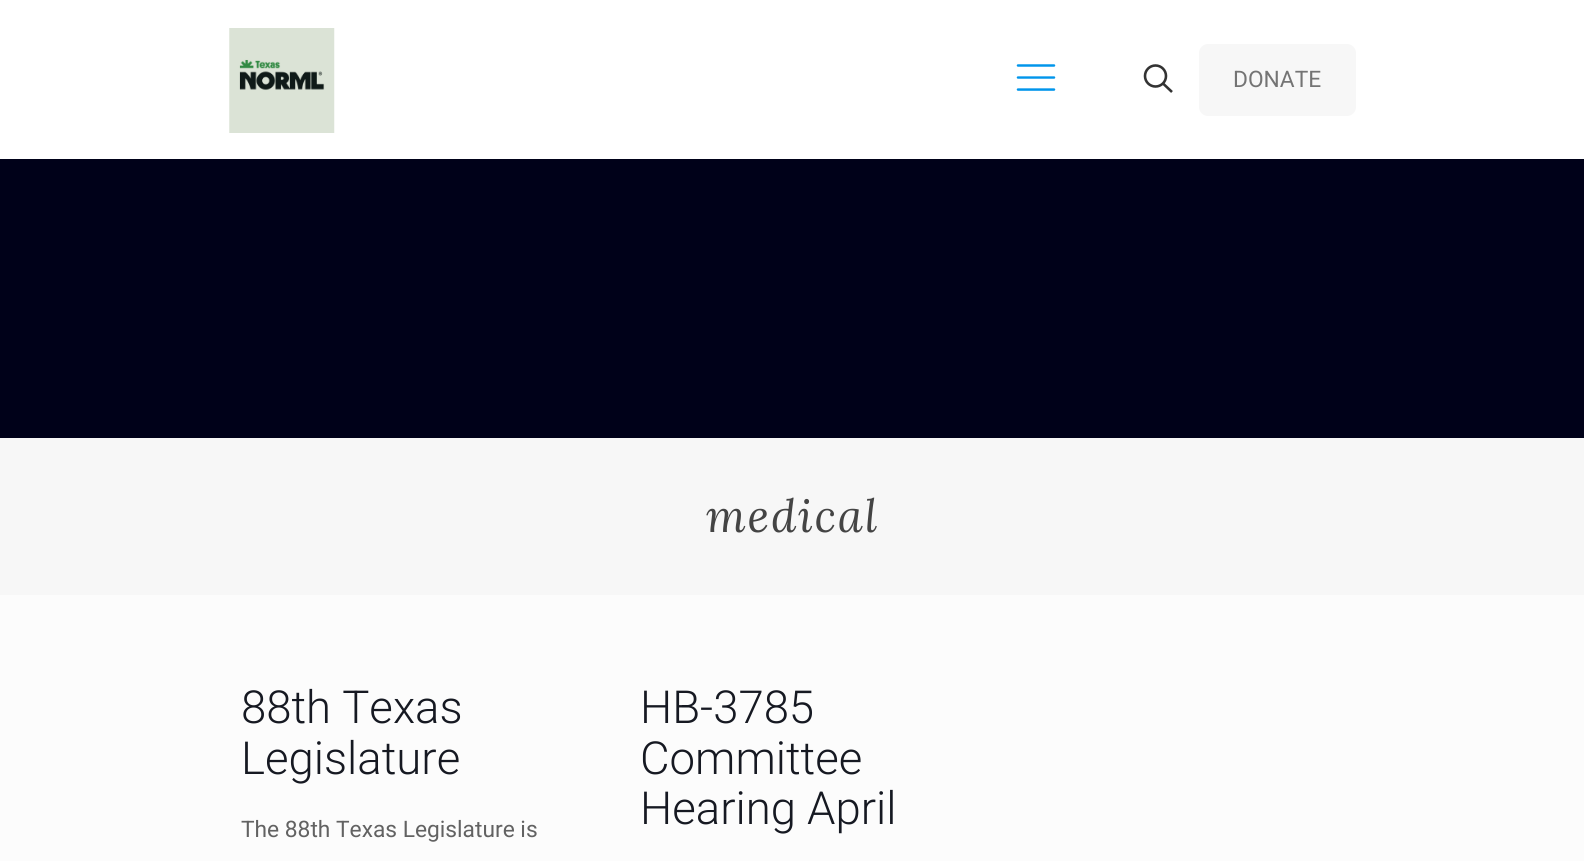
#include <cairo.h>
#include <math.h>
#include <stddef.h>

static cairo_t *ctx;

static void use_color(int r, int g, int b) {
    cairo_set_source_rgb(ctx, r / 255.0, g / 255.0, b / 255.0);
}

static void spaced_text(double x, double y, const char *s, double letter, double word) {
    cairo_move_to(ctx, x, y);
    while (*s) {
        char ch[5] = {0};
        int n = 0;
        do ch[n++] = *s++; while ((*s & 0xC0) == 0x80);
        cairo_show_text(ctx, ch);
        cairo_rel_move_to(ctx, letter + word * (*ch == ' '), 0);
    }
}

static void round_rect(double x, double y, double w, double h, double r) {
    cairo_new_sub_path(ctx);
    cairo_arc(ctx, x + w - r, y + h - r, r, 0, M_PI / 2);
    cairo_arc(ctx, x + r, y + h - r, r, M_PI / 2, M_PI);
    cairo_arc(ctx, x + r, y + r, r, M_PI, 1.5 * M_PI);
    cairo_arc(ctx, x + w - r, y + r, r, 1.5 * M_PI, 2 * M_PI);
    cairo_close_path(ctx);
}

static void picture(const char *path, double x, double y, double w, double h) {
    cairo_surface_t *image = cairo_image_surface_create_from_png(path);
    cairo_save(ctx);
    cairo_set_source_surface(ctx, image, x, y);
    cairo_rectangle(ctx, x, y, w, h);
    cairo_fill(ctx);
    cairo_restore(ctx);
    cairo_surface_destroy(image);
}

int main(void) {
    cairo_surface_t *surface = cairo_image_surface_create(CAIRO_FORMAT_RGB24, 1584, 861);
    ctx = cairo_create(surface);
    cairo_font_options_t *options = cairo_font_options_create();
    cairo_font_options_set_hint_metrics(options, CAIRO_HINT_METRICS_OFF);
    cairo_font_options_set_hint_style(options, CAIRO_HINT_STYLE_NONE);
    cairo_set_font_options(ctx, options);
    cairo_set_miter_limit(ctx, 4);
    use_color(252, 252, 252);
    cairo_paint(ctx);
    use_color(0, 1, 25);
    cairo_rectangle(ctx, 0, 159, 1584, 279);
    cairo_fill(ctx);
    use_color(255, 255, 255);
    cairo_rectangle(ctx, 0, 0, 1584, 159);
    cairo_fill(ctx);
    picture("img1.png", 229, 28, 106, 105);
    picture("img2.png", 1016, 64, 40, 27);
    cairo_arc(ctx, 1155.5, 76, 10.5, 0, 2 * M_PI);
    use_color(51, 51, 51);
    cairo_set_line_width(ctx, 2.6);
    cairo_stroke(ctx);
    cairo_new_path(ctx);
    cairo_move_to(ctx, 1163, 83.5);
    cairo_line_to(ctx, 1172, 92);
    cairo_stroke(ctx);
    use_color(247, 247, 247);
    round_rect(1199, 44, 157, 72, 9);
    cairo_fill(ctx);
    cairo_select_font_face(ctx, "Roboto", CAIRO_FONT_SLANT_NORMAL, CAIRO_FONT_WEIGHT_NORMAL);
    cairo_set_font_size(ctx, 22.75);
    use_color(116, 116, 116);
    cairo_move_to(ctx, 1233, 87);
    cairo_show_text(ctx, "DONATE");
    use_color(247, 247, 247);
    cairo_rectangle(ctx, 0, 438, 1584, 157);
    cairo_fill(ctx);
    cairo_select_font_face(ctx, "Lora", CAIRO_FONT_SLANT_ITALIC, CAIRO_FONT_WEIGHT_NORMAL);
    cairo_set_font_size(ctx, 45.5);
    use_color(68, 68, 68);
    spaced_text(706, 532, "medical", 1.75, 0);
    cairo_select_font_face(ctx, "Roboto Light", CAIRO_FONT_SLANT_NORMAL, CAIRO_FONT_WEIGHT_NORMAL);
    use_color(22, 25, 34);
    cairo_move_to(ctx, 241, 723);
    cairo_show_text(ctx, "88th Texas");
    cairo_move_to(ctx, 241, 774);
    cairo_show_text(ctx, "Legislature");
    cairo_select_font_face(ctx, "Roboto", CAIRO_FONT_SLANT_NORMAL, CAIRO_FONT_WEIGHT_NORMAL);
    cairo_set_font_size(ctx, 22.75);
    use_color(98, 98, 98);
    cairo_move_to(ctx, 241, 837);
    cairo_show_text(ctx, "The 88th Texas Legislature is");
    cairo_select_font_face(ctx, "Roboto Light", CAIRO_FONT_SLANT_NORMAL, CAIRO_FONT_WEIGHT_NORMAL);
    cairo_set_font_size(ctx, 45.5);
    use_color(22, 25, 34);
    cairo_move_to(ctx, 640, 723);
    cairo_show_text(ctx, "HB-3785");
    cairo_move_to(ctx, 640, 774);
    cairo_show_text(ctx, "Committee");
    cairo_move_to(ctx, 640, 824);
    cairo_show_text(ctx, "Hearing April");
    cairo_surface_write_to_png(surface, "result.png");
    cairo_font_options_destroy(options);
    cairo_destroy(ctx);
    cairo_surface_destroy(surface);
    return 0;
}
